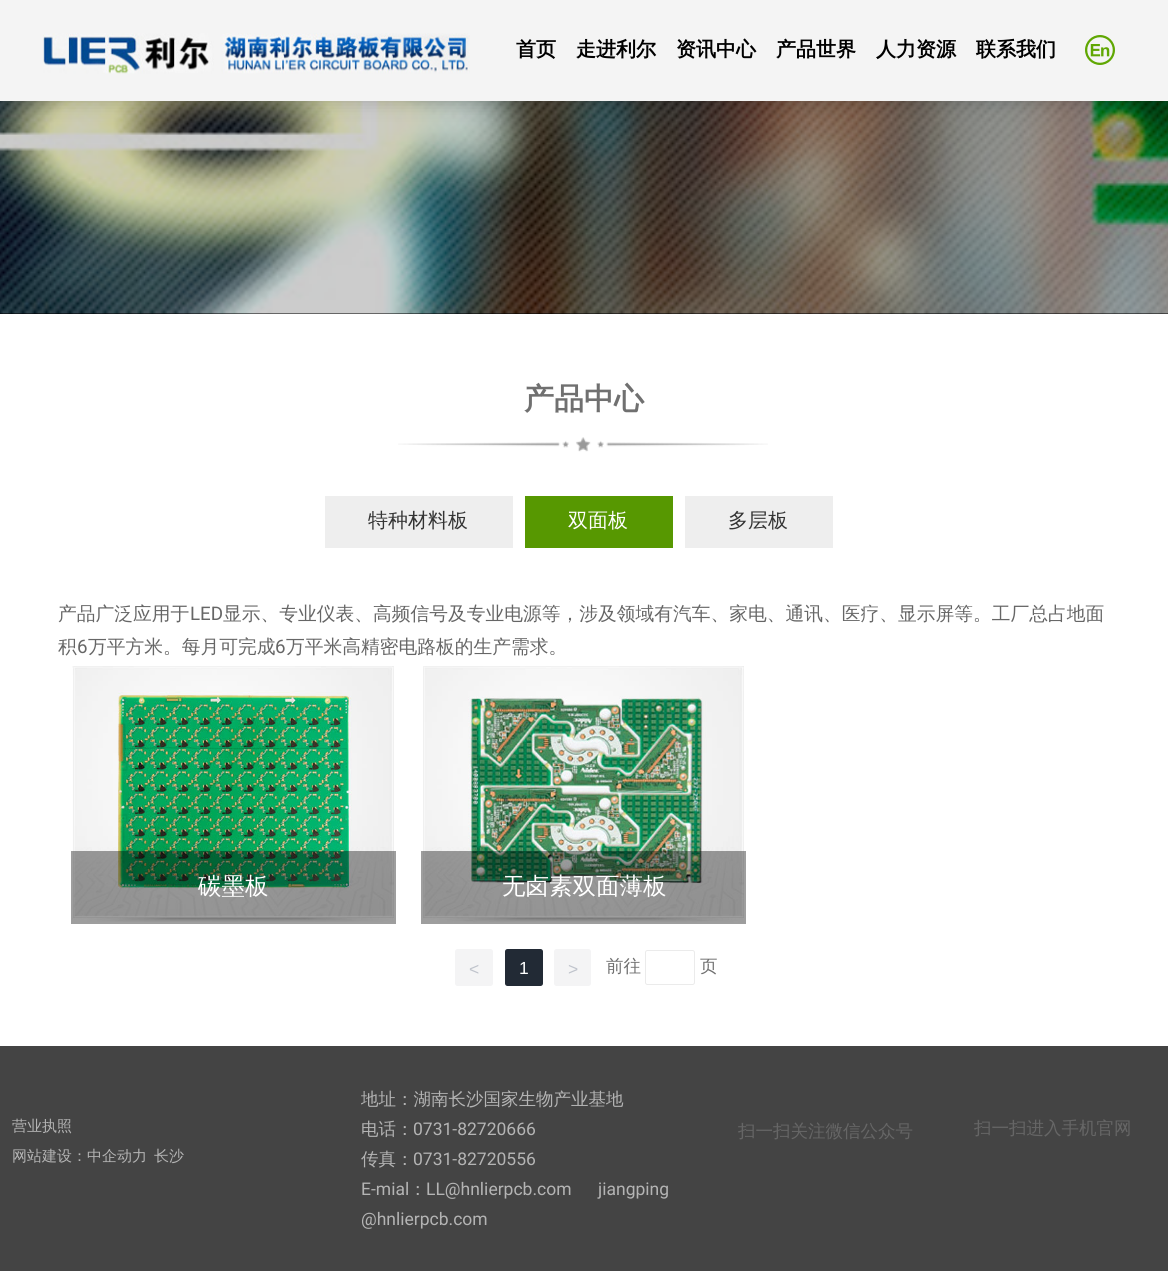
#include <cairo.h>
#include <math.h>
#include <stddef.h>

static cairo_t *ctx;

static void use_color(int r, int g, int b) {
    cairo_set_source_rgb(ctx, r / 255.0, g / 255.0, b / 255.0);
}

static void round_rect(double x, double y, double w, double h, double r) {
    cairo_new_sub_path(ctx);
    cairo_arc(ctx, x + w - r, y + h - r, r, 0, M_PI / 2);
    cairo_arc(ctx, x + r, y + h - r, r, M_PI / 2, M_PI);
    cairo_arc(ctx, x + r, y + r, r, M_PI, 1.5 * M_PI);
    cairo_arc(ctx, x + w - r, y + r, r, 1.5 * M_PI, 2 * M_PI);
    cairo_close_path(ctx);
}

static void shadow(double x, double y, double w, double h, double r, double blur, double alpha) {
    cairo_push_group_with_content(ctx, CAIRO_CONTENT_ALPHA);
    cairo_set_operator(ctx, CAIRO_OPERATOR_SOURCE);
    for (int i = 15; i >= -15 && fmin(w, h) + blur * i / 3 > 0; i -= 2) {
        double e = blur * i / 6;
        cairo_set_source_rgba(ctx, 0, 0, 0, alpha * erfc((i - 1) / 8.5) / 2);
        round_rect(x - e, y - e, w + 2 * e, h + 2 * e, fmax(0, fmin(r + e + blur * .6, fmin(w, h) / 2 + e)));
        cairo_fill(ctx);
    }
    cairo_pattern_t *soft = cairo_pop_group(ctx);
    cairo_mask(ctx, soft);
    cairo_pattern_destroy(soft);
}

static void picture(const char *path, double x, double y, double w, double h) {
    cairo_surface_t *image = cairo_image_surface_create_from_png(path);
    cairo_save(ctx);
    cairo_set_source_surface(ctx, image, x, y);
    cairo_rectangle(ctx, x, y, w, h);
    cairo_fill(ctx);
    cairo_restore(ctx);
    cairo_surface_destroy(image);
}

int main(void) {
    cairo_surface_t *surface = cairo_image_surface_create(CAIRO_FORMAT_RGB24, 1168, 1271);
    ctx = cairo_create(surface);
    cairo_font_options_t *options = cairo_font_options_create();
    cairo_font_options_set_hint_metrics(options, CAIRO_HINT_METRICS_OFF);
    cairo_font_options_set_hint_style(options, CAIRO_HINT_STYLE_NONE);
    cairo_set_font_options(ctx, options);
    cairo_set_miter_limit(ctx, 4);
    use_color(255, 255, 255);
    cairo_paint(ctx);
    use_color(0, 0, 0);
    cairo_rectangle(ctx, 0, 101, 1168, 213);
    cairo_fill(ctx);
    picture("img3.png", 0, 101, 1168, 213);
    use_color(0, 0, 0);
    shadow(0, 0, 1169, 101, 0, 9.5, 0.2);
    use_color(244, 244, 244);
    cairo_rectangle(ctx, 0, 0, 1168, 101);
    cairo_fill(ctx);
    picture("img1.png", 43, 33, 427, 41);
    cairo_select_font_face(ctx, "WenQuanYi Zen Hei", CAIRO_FONT_SLANT_NORMAL, CAIRO_FONT_WEIGHT_BOLD);
    cairo_set_font_size(ctx, 20);
    use_color(0, 0, 0);
    cairo_move_to(ctx, 516, 56);
    cairo_show_text(ctx, "首页");
    cairo_move_to(ctx, 576, 56);
    cairo_show_text(ctx, "走进利尔");
    cairo_move_to(ctx, 676, 56);
    cairo_show_text(ctx, "资讯中心");
    cairo_move_to(ctx, 776, 56);
    cairo_show_text(ctx, "产品世界");
    cairo_move_to(ctx, 876, 56);
    cairo_show_text(ctx, "人力资源");
    cairo_move_to(ctx, 976, 56);
    cairo_show_text(ctx, "联系我们");
    picture("img2.png", 1085, 35, 30, 30);
    cairo_set_font_size(ctx, 30);
    use_color(112, 112, 112);
    cairo_move_to(ctx, 524, 409);
    cairo_show_text(ctx, "产品中心");
    picture("img4.png", 398, 437, 370, 15);
    use_color(238, 238, 238);
    cairo_rectangle(ctx, 325, 496, 188, 52);
    cairo_fill(ctx);
    cairo_select_font_face(ctx, "WenQuanYi Zen Hei Medium", CAIRO_FONT_SLANT_NORMAL, CAIRO_FONT_WEIGHT_NORMAL);
    cairo_set_font_size(ctx, 20);
    use_color(51, 51, 51);
    cairo_move_to(ctx, 368, 527);
    cairo_show_text(ctx, "特种材料板");
    use_color(87, 152, 1);
    cairo_rectangle(ctx, 525, 496, 148, 52);
    cairo_fill(ctx);
    use_color(255, 255, 255);
    cairo_move_to(ctx, 568, 527);
    cairo_show_text(ctx, "双面板");
    use_color(238, 238, 238);
    cairo_rectangle(ctx, 685, 496, 148, 52);
    cairo_fill(ctx);
    use_color(51, 51, 51);
    cairo_move_to(ctx, 728, 527);
    cairo_show_text(ctx, "多层板");
    cairo_set_font_size(ctx, 18.75);
    use_color(102, 102, 102);
    cairo_move_to(ctx, 58, 620);
    cairo_show_text(ctx, "产品广泛应用于");
    cairo_select_font_face(ctx, "Roboto", CAIRO_FONT_SLANT_NORMAL, CAIRO_FONT_WEIGHT_NORMAL);
    cairo_move_to(ctx, 190, 620);
    cairo_show_text(ctx, "LED");
    cairo_select_font_face(ctx, "WenQuanYi Zen Hei Medium", CAIRO_FONT_SLANT_NORMAL, CAIRO_FONT_WEIGHT_NORMAL);
    cairo_move_to(ctx, 223, 620);
    cairo_show_text(ctx, "显示、专业仪表、高频信号及专业电源等，涉及领域有汽车、家电、通讯、医疗、显示屏等。工厂总占地面");
    cairo_move_to(ctx, 58, 653);
    cairo_show_text(ctx, "积");
    cairo_select_font_face(ctx, "Roboto", CAIRO_FONT_SLANT_NORMAL, CAIRO_FONT_WEIGHT_NORMAL);
    cairo_move_to(ctx, 77, 653);
    cairo_show_text(ctx, "6");
    cairo_select_font_face(ctx, "WenQuanYi Zen Hei Medium", CAIRO_FONT_SLANT_NORMAL, CAIRO_FONT_WEIGHT_NORMAL);
    cairo_move_to(ctx, 88, 653);
    cairo_show_text(ctx, "万平方米。每月可完成");
    cairo_select_font_face(ctx, "Roboto", CAIRO_FONT_SLANT_NORMAL, CAIRO_FONT_WEIGHT_NORMAL);
    cairo_move_to(ctx, 275, 653);
    cairo_show_text(ctx, "6");
    cairo_select_font_face(ctx, "WenQuanYi Zen Hei Medium", CAIRO_FONT_SLANT_NORMAL, CAIRO_FONT_WEIGHT_NORMAL);
    cairo_move_to(ctx, 286, 653);
    cairo_show_text(ctx, "万平米高精密电路板的生产需求。");
    picture("img5.png", 72, 666, 322, 256);
    cairo_set_source_rgba(ctx, 0, 0, 0, 0.38);
    cairo_rectangle(ctx, 71, 851, 325, 73);
    cairo_fill(ctx);
    cairo_set_font_size(ctx, 23.5);
    use_color(255, 255, 255);
    cairo_move_to(ctx, 198, 894);
    cairo_show_text(ctx, "碳墨板");
    picture("img6.png", 423, 666, 321, 257);
    cairo_set_source_rgba(ctx, 0, 0, 0, 0.38);
    cairo_rectangle(ctx, 421, 851, 325, 73);
    cairo_fill(ctx);
    use_color(255, 255, 255);
    cairo_move_to(ctx, 502, 894);
    cairo_show_text(ctx, "无卤素双面薄板");
    use_color(244, 244, 245);
    round_rect(455, 949, 38, 37, 2.5);
    cairo_fill(ctx);
    cairo_select_font_face(ctx, "Liberation Sans", CAIRO_FONT_SLANT_NORMAL, CAIRO_FONT_WEIGHT_NORMAL);
    cairo_set_font_size(ctx, 17.5);
    use_color(192, 196, 204);
    cairo_move_to(ctx, 469, 975);
    cairo_show_text(ctx, "<");
    use_color(34, 42, 53);
    round_rect(505, 949, 38, 37, 2.5);
    cairo_fill(ctx);
    use_color(255, 255, 255);
    cairo_move_to(ctx, 519, 974);
    cairo_show_text(ctx, "1");
    use_color(244, 244, 245);
    round_rect(554, 949, 37, 37, 2.5);
    cairo_fill(ctx);
    use_color(192, 196, 204);
    cairo_move_to(ctx, 568, 975);
    cairo_show_text(ctx, ">");
    cairo_select_font_face(ctx, "WenQuanYi Zen Hei Medium", CAIRO_FONT_SLANT_NORMAL, CAIRO_FONT_WEIGHT_NORMAL);
    use_color(112, 112, 112);
    cairo_move_to(ctx, 606, 972);
    cairo_show_text(ctx, "前往");
    round_rect(645.5, 950.5, 49, 34, 2);
    use_color(235, 235, 235);
    cairo_set_line_width(ctx, 1);
    cairo_stroke(ctx);
    use_color(112, 112, 112);
    cairo_move_to(ctx, 700, 972);
    cairo_show_text(ctx, "页");
    use_color(68, 68, 68);
    cairo_rectangle(ctx, 0, 1046, 1168, 225);
    cairo_fill(ctx);
    cairo_set_font_size(ctx, 15);
    use_color(180, 180, 180);
    cairo_move_to(ctx, 12, 1131);
    cairo_show_text(ctx, "营业执照");
    cairo_move_to(ctx, 12, 1161);
    cairo_show_text(ctx, "网站建设：中企动力");
    cairo_move_to(ctx, 154, 1161);
    cairo_show_text(ctx, "长沙");
    cairo_set_font_size(ctx, 17.5);
    cairo_move_to(ctx, 361, 1105);
    cairo_show_text(ctx, "地址：湖南长沙国家生物产业基地");
    cairo_move_to(ctx, 361, 1135);
    cairo_show_text(ctx, "电话：");
    cairo_select_font_face(ctx, "Roboto", CAIRO_FONT_SLANT_NORMAL, CAIRO_FONT_WEIGHT_NORMAL);
    cairo_move_to(ctx, 413, 1135);
    cairo_show_text(ctx, "0731-82720666");
    cairo_select_font_face(ctx, "WenQuanYi Zen Hei Medium", CAIRO_FONT_SLANT_NORMAL, CAIRO_FONT_WEIGHT_NORMAL);
    cairo_move_to(ctx, 361, 1165);
    cairo_show_text(ctx, "传真：");
    cairo_select_font_face(ctx, "Roboto", CAIRO_FONT_SLANT_NORMAL, CAIRO_FONT_WEIGHT_NORMAL);
    cairo_move_to(ctx, 413, 1165);
    cairo_show_text(ctx, "0731-82720556");
    cairo_move_to(ctx, 361, 1195);
    cairo_show_text(ctx, "E-mial");
    cairo_select_font_face(ctx, "WenQuanYi Zen Hei Medium", CAIRO_FONT_SLANT_NORMAL, CAIRO_FONT_WEIGHT_NORMAL);
    cairo_move_to(ctx, 409, 1195);
    cairo_show_text(ctx, "：");
    cairo_select_font_face(ctx, "Roboto", CAIRO_FONT_SLANT_NORMAL, CAIRO_FONT_WEIGHT_NORMAL);
    cairo_move_to(ctx, 426, 1195);
    cairo_show_text(ctx, "LL@hnlierpcb.com");
    cairo_move_to(ctx, 598, 1195);
    cairo_show_text(ctx, "jiangping");
    cairo_move_to(ctx, 361, 1225);
    cairo_show_text(ctx, "@hnlierpcb.com");
    cairo_select_font_face(ctx, "WenQuanYi Zen Hei Medium", CAIRO_FONT_SLANT_NORMAL, CAIRO_FONT_WEIGHT_NORMAL);
    use_color(102, 102, 102);
    cairo_move_to(ctx, 738, 1137);
    cairo_show_text(ctx, "扫一扫关注微信公众号");
    cairo_move_to(ctx, 974, 1134);
    cairo_show_text(ctx, "扫一扫进入手机官网");
    cairo_surface_write_to_png(surface, "result.png");
    cairo_font_options_destroy(options);
    cairo_destroy(ctx);
    cairo_surface_destroy(surface);
    return 0;
}
